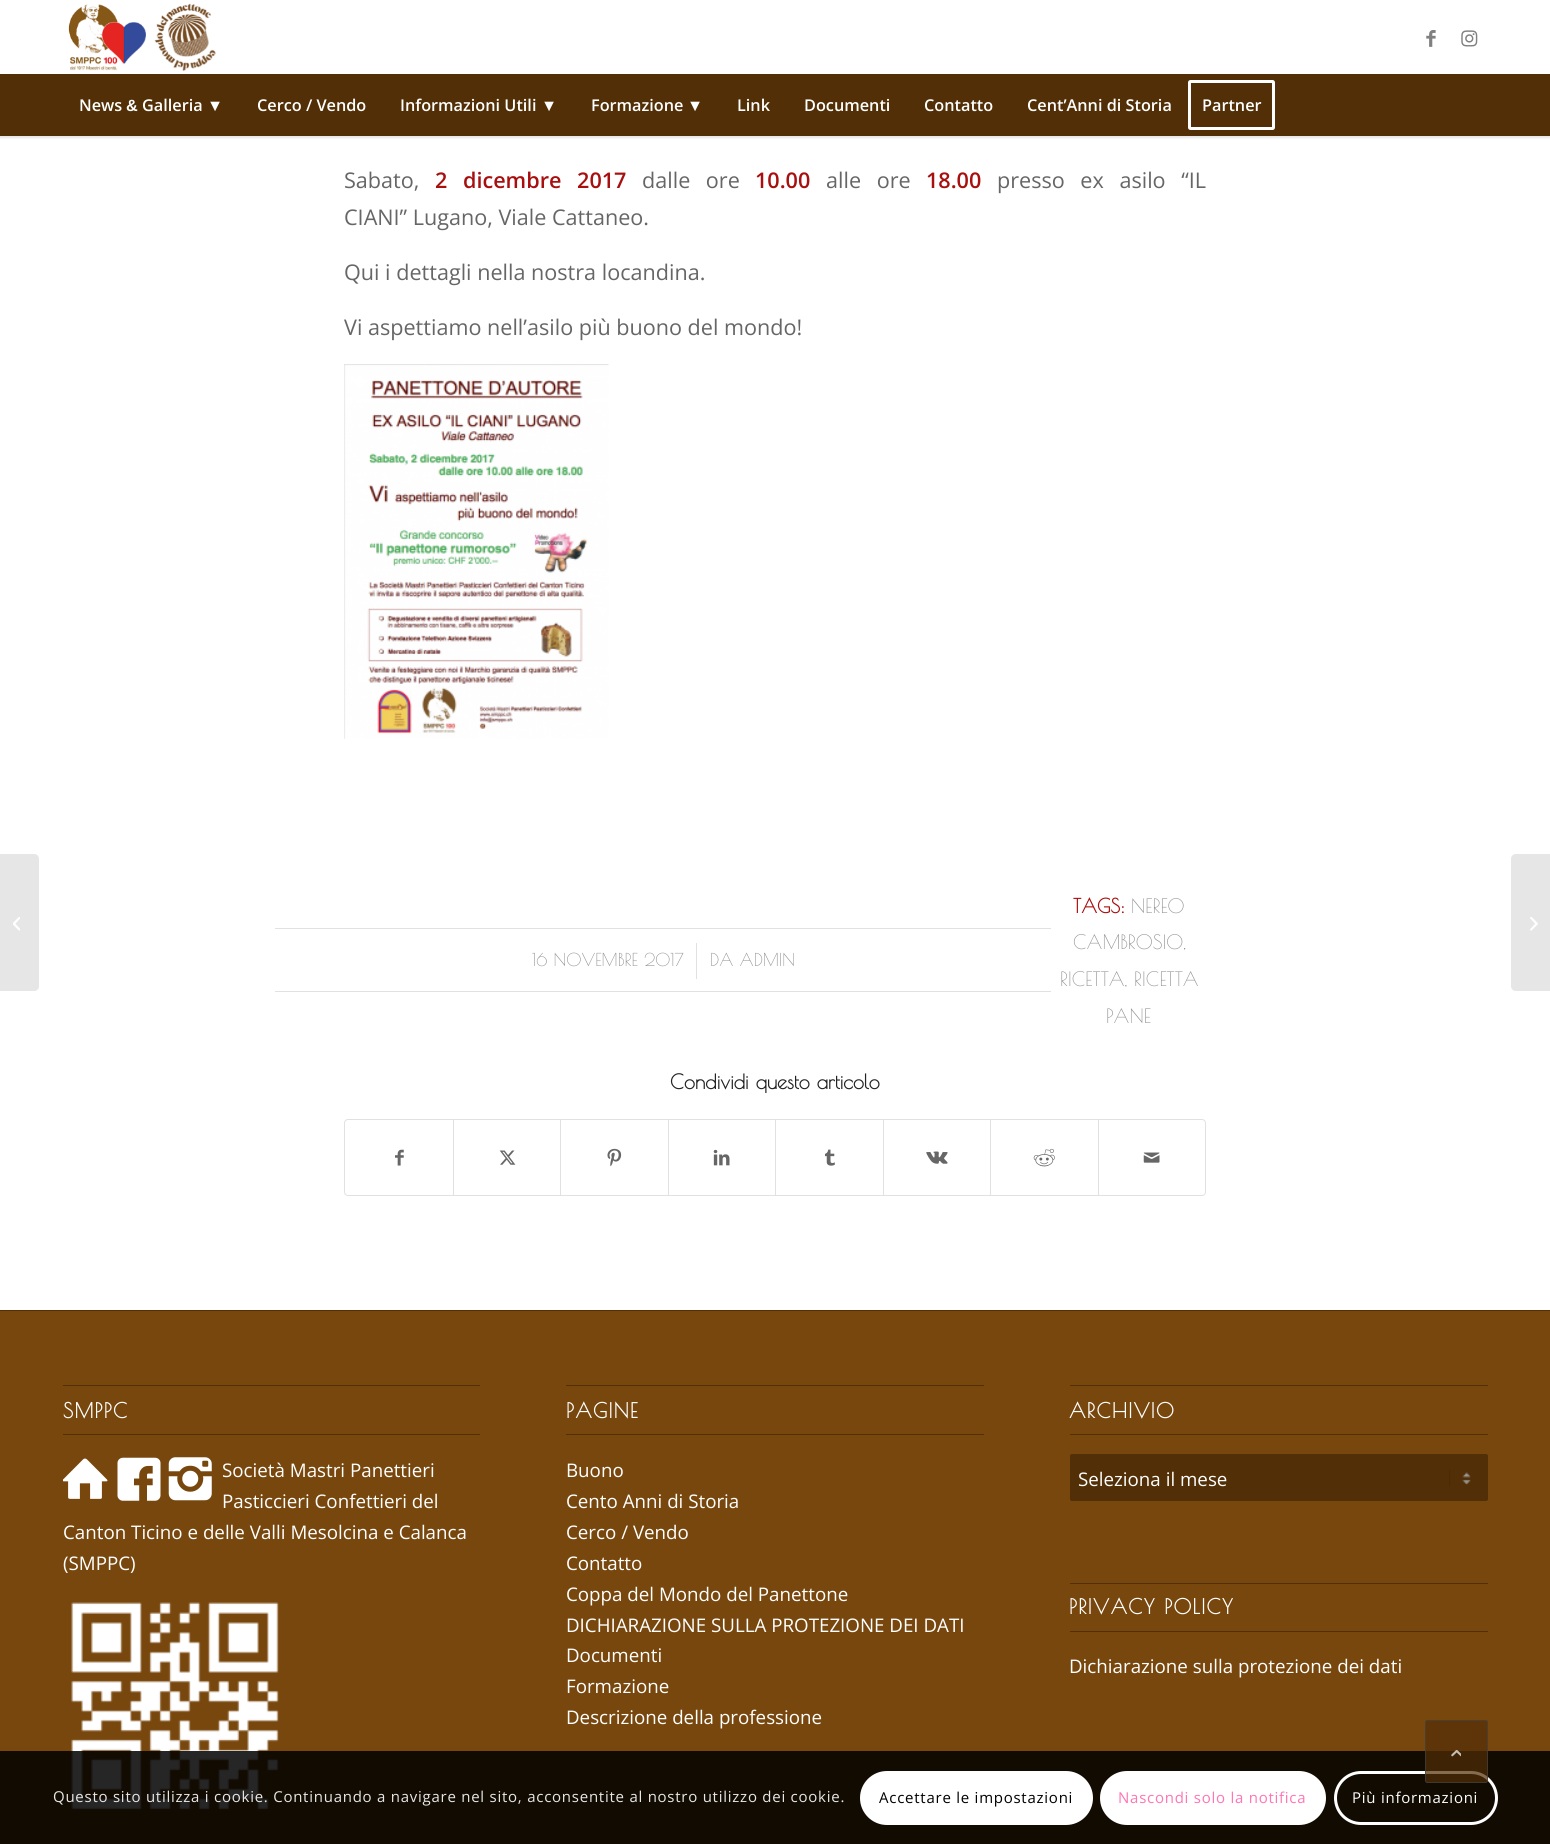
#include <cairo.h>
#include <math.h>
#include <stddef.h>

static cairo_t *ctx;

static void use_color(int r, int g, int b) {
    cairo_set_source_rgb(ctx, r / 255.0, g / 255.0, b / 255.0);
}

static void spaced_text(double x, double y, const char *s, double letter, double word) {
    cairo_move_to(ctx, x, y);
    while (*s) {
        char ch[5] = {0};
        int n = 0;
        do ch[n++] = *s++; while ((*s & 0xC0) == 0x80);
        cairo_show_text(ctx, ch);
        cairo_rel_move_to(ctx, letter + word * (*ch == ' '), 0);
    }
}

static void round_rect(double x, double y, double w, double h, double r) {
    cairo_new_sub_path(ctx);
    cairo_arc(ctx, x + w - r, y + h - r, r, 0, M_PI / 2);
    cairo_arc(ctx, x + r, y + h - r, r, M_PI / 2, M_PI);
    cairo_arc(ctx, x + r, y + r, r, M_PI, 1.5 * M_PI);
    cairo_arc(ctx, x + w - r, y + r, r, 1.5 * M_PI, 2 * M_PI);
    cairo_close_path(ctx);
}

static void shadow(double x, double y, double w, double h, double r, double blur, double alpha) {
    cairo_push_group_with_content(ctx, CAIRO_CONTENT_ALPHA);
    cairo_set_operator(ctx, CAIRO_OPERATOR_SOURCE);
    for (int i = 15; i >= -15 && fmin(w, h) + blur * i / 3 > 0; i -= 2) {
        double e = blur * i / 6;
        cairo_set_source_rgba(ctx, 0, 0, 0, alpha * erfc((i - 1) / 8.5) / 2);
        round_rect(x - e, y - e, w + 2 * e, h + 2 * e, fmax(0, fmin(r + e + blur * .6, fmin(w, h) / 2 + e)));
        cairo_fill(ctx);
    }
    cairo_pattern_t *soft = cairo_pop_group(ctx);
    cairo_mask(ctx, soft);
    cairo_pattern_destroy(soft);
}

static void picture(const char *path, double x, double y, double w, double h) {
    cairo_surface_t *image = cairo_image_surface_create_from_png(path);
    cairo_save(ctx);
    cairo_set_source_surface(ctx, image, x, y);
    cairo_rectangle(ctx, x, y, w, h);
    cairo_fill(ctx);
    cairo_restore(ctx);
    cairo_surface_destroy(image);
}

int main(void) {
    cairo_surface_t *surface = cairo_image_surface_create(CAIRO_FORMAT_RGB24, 1550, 1844);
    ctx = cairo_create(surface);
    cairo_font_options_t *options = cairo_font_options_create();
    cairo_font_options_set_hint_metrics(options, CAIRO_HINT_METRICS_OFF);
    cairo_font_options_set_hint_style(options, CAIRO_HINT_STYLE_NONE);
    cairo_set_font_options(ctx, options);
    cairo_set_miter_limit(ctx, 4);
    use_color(255, 255, 255);
    cairo_paint(ctx);
    use_color(0, 0, 0);
    shadow(-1, -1, 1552, 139, 0, 1, 0.1);
    use_color(255, 255, 255);
    cairo_rectangle(ctx, 0, 0, 1550, 74);
    cairo_fill(ctx);
    picture("img1.png", 68, 3, 148, 69);
    picture("img2.png", 1426, 30, 10, 17);
    picture("img3.png", 1461, 30, 17, 17);
    use_color(82, 47, 6);
    cairo_rectangle(ctx, 0, 74, 1550, 62);
    cairo_fill(ctx);
    cairo_select_font_face(ctx, "Open Sans SemiBold", CAIRO_FONT_SLANT_NORMAL, CAIRO_FONT_WEIGHT_NORMAL);
    cairo_set_font_size(ctx, 16.25);
    use_color(255, 255, 255);
    cairo_move_to(ctx, 79, 111);
    cairo_show_text(ctx, "News");
    cairo_select_font_face(ctx, "Liberation Sans", CAIRO_FONT_SLANT_NORMAL, CAIRO_FONT_WEIGHT_BOLD);
    cairo_move_to(ctx, 126, 111);
    cairo_show_text(ctx, "&");
    cairo_select_font_face(ctx, "Open Sans SemiBold", CAIRO_FONT_SLANT_NORMAL, CAIRO_FONT_WEIGHT_NORMAL);
    cairo_move_to(ctx, 142, 111);
    cairo_show_text(ctx, "Galleria");
    cairo_select_font_face(ctx, "Liberation Sans", CAIRO_FONT_SLANT_NORMAL, CAIRO_FONT_WEIGHT_BOLD);
    cairo_move_to(ctx, 207, 111);
    cairo_show_text(ctx, "▼");
    cairo_select_font_face(ctx, "Open Sans SemiBold", CAIRO_FONT_SLANT_NORMAL, CAIRO_FONT_WEIGHT_NORMAL);
    cairo_move_to(ctx, 257, 111);
    cairo_show_text(ctx, "Cerco / Vendo");
    cairo_move_to(ctx, 400, 111);
    cairo_show_text(ctx, "Informazioni Utili");
    cairo_select_font_face(ctx, "Liberation Sans", CAIRO_FONT_SLANT_NORMAL, CAIRO_FONT_WEIGHT_BOLD);
    cairo_move_to(ctx, 541, 111);
    cairo_show_text(ctx, "▼");
    cairo_select_font_face(ctx, "Open Sans SemiBold", CAIRO_FONT_SLANT_NORMAL, CAIRO_FONT_WEIGHT_NORMAL);
    cairo_move_to(ctx, 591, 111);
    cairo_show_text(ctx, "Formazione");
    cairo_select_font_face(ctx, "Liberation Sans", CAIRO_FONT_SLANT_NORMAL, CAIRO_FONT_WEIGHT_BOLD);
    cairo_move_to(ctx, 687, 111);
    cairo_show_text(ctx, "▼");
    cairo_select_font_face(ctx, "Open Sans SemiBold", CAIRO_FONT_SLANT_NORMAL, CAIRO_FONT_WEIGHT_NORMAL);
    cairo_move_to(ctx, 737, 111);
    cairo_show_text(ctx, "Link");
    cairo_move_to(ctx, 804, 111);
    cairo_show_text(ctx, "Documenti");
    cairo_move_to(ctx, 924, 111);
    cairo_show_text(ctx, "Contatto");
    cairo_move_to(ctx, 1027, 111);
    cairo_show_text(ctx, "Cent’Anni di Storia");
    round_rect(1189.5, 81.5, 84, 47, 1);
    cairo_set_line_width(ctx, 3);
    cairo_stroke(ctx);
    cairo_move_to(ctx, 1202, 111);
    cairo_show_text(ctx, "Partner");
    use_color(230, 230, 230);
    cairo_new_path(ctx);
    cairo_move_to(ctx, 0, 854);
    cairo_line_to(ctx, 34, 854);
    cairo_curve_to(ctx, 37, 854, 39, 856, 39, 859);
    cairo_line_to(ctx, 39, 986);
    cairo_curve_to(ctx, 39, 989, 37, 991, 34, 991);
    cairo_line_to(ctx, 0, 991);
    cairo_close_path(ctx);
    cairo_fill(ctx);
    picture("img4.png", 13, 917, 7, 14);
    cairo_select_font_face(ctx, "Open Sans", CAIRO_FONT_SLANT_NORMAL, CAIRO_FONT_WEIGHT_NORMAL);
    cairo_set_font_size(ctx, 21.6);
    use_color(102, 102, 102);
    cairo_move_to(ctx, 344, 188);
    cairo_show_text(ctx, "Sabato,");
    cairo_select_font_face(ctx, "Open Sans SemiBold", CAIRO_FONT_SLANT_NORMAL, CAIRO_FONT_WEIGHT_NORMAL);
    use_color(168, 16, 16);
    spaced_text(435, 188, "2 dicembre 2017", 0, 10);
    cairo_select_font_face(ctx, "Open Sans", CAIRO_FONT_SLANT_NORMAL, CAIRO_FONT_WEIGHT_NORMAL);
    use_color(102, 102, 102);
    spaced_text(642, 188, "dalle ore", 0, 10);
    cairo_select_font_face(ctx, "Open Sans SemiBold", CAIRO_FONT_SLANT_NORMAL, CAIRO_FONT_WEIGHT_NORMAL);
    use_color(168, 16, 16);
    cairo_move_to(ctx, 755, 188);
    cairo_show_text(ctx, "10.00");
    cairo_select_font_face(ctx, "Open Sans", CAIRO_FONT_SLANT_NORMAL, CAIRO_FONT_WEIGHT_NORMAL);
    use_color(102, 102, 102);
    spaced_text(826, 188, "alle ore", 0, 10);
    cairo_select_font_face(ctx, "Open Sans SemiBold", CAIRO_FONT_SLANT_NORMAL, CAIRO_FONT_WEIGHT_NORMAL);
    use_color(168, 16, 16);
    cairo_move_to(ctx, 926, 188);
    cairo_show_text(ctx, "18.00");
    cairo_select_font_face(ctx, "Open Sans", CAIRO_FONT_SLANT_NORMAL, CAIRO_FONT_WEIGHT_NORMAL);
    use_color(102, 102, 102);
    spaced_text(997, 188, "presso ex asilo “IL", 0, 10);
    cairo_move_to(ctx, 344, 225);
    cairo_show_text(ctx, "CIANI” Lugano, Viale Cattaneo.");
    cairo_move_to(ctx, 344, 280);
    cairo_show_text(ctx, "Qui i dettagli nella nostra locandina.");
    cairo_move_to(ctx, 344, 335);
    cairo_show_text(ctx, "Vi aspettiamo nell’asilo più buono del mondo!");
    picture("img5.png", 344, 364, 265, 375);
    use_color(225, 225, 225);
    cairo_rectangle(ctx, 275, 928, 776, 1);
    cairo_fill(ctx);
    cairo_rectangle(ctx, 275, 991, 776, 1);
    cairo_fill(ctx);
    cairo_select_font_face(ctx, "Poiret One", CAIRO_FONT_SLANT_NORMAL, CAIRO_FONT_WEIGHT_NORMAL);
    cairo_set_font_size(ctx, 17.5);
    use_color(145, 145, 145);
    cairo_move_to(ctx, 532, 966);
    cairo_show_text(ctx, "16 NOVEMBRE 2017");
    use_color(225, 225, 225);
    cairo_rectangle(ctx, 696, 943, 1, 36);
    cairo_fill(ctx);
    use_color(145, 145, 145);
    cairo_move_to(ctx, 710, 966);
    cairo_show_text(ctx, "DA ADMIN");
    cairo_select_font_face(ctx, "Poiret One", CAIRO_FONT_SLANT_NORMAL, CAIRO_FONT_WEIGHT_BOLD);
    cairo_set_font_size(ctx, 19.5);
    use_color(168, 16, 16);
    cairo_move_to(ctx, 1073, 913);
    cairo_show_text(ctx, "TAGS:");
    cairo_select_font_face(ctx, "Poiret One", CAIRO_FONT_SLANT_NORMAL, CAIRO_FONT_WEIGHT_NORMAL);
    use_color(145, 145, 145);
    cairo_move_to(ctx, 1131, 913);
    cairo_show_text(ctx, "NEREO");
    cairo_move_to(ctx, 1073, 949);
    cairo_show_text(ctx, "CAMBROSIO,");
    cairo_move_to(ctx, 1060, 986);
    cairo_show_text(ctx, "RICETTA, RICETTA");
    cairo_move_to(ctx, 1106, 1023);
    cairo_show_text(ctx, "PANE");
    cairo_select_font_face(ctx, "Poiret One", CAIRO_FONT_SLANT_NORMAL, CAIRO_FONT_WEIGHT_BOLD);
    cairo_set_font_size(ctx, 20);
    use_color(34, 34, 34);
    cairo_move_to(ctx, 670, 1089);
    cairo_show_text(ctx, "Condividi questo articolo");
    round_rect(344.5, 1119.5, 861, 76, 3.5);
    use_color(225, 225, 225);
    cairo_set_line_width(ctx, 1);
    cairo_stroke(ctx);
    picture("img6.png", 395, 1149, 9, 17);
    cairo_rectangle(ctx, 453, 1120, 1, 75);
    cairo_fill(ctx);
    picture("img7.png", 499, 1150, 17, 15);
    cairo_rectangle(ctx, 560, 1120, 1, 75);
    cairo_fill(ctx);
    picture("img8.png", 607, 1148, 15, 19);
    cairo_rectangle(ctx, 668, 1120, 1, 75);
    cairo_fill(ctx);
    picture("img9.png", 713, 1149, 17, 17);
    cairo_rectangle(ctx, 775, 1120, 1, 75);
    cairo_fill(ctx);
    picture("img10.png", 825, 1149, 10, 17);
    cairo_rectangle(ctx, 883, 1120, 1, 75);
    cairo_fill(ctx);
    picture("img11.png", 926, 1151, 22, 13);
    cairo_rectangle(ctx, 990, 1120, 1, 75);
    cairo_fill(ctx);
    picture("img12.png", 1033, 1148, 22, 19);
    cairo_rectangle(ctx, 1098, 1120, 1, 75);
    cairo_fill(ctx);
    picture("img13.png", 1143, 1152, 17, 11);
    use_color(120, 71, 14);
    cairo_rectangle(ctx, 0, 1311, 1550, 533);
    cairo_fill(ctx);
    use_color(82, 47, 6);
    cairo_rectangle(ctx, 0, 1310, 1550, 1);
    cairo_fill(ctx);
    cairo_rectangle(ctx, 63, 1385, 417, 1);
    cairo_fill(ctx);
    cairo_rectangle(ctx, 63, 1434, 417, 1);
    cairo_fill(ctx);
    cairo_set_font_size(ctx, 20.5);
    use_color(255, 255, 255);
    spaced_text(63, 1418, "SMPPC", 1.25, 0);
    picture("img14.png", 63, 1458, 45, 41);
    picture("img15.png", 117, 1457, 44, 44);
    picture("img16.png", 168, 1457, 44, 44);
    cairo_select_font_face(ctx, "Open Sans", CAIRO_FONT_SLANT_NORMAL, CAIRO_FONT_WEIGHT_NORMAL);
    cairo_set_font_size(ctx, 18.75);
    cairo_move_to(ctx, 222, 1477);
    cairo_show_text(ctx, "Società Mastri Panettieri");
    cairo_move_to(ctx, 222, 1508);
    cairo_show_text(ctx, "Pasticcieri Confettieri del");
    cairo_move_to(ctx, 63, 1539);
    cairo_show_text(ctx, "Canton Ticino e delle Valli Mesolcina e Calanca");
    cairo_move_to(ctx, 63, 1570);
    cairo_show_text(ctx, "(SMPPC)");
    picture("img17.png", 71, 1602, 208, 208);
    use_color(82, 47, 6);
    cairo_rectangle(ctx, 566, 1385, 418, 1);
    cairo_fill(ctx);
    cairo_rectangle(ctx, 566, 1434, 418, 1);
    cairo_fill(ctx);
    cairo_select_font_face(ctx, "Poiret One", CAIRO_FONT_SLANT_NORMAL, CAIRO_FONT_WEIGHT_BOLD);
    cairo_set_font_size(ctx, 20.5);
    use_color(255, 255, 255);
    spaced_text(566, 1418, "PAGINE", 1.25, 0);
    cairo_select_font_face(ctx, "Open Sans", CAIRO_FONT_SLANT_NORMAL, CAIRO_FONT_WEIGHT_NORMAL);
    cairo_set_font_size(ctx, 18.75);
    cairo_move_to(ctx, 566, 1477);
    cairo_show_text(ctx, "Buono");
    cairo_move_to(ctx, 566, 1508);
    cairo_show_text(ctx, "Cento Anni di Storia");
    cairo_move_to(ctx, 566, 1539);
    cairo_show_text(ctx, "Cerco / Vendo");
    cairo_move_to(ctx, 566, 1570);
    cairo_show_text(ctx, "Contatto");
    cairo_move_to(ctx, 566, 1601);
    cairo_show_text(ctx, "Coppa del Mondo del Panettone");
    cairo_move_to(ctx, 566, 1632);
    cairo_show_text(ctx, "DICHIARAZIONE SULLA PROTEZIONE DEI DATI");
    cairo_move_to(ctx, 566, 1662);
    cairo_show_text(ctx, "Documenti");
    cairo_move_to(ctx, 566, 1693);
    cairo_show_text(ctx, "Formazione");
    cairo_move_to(ctx, 566, 1724);
    cairo_show_text(ctx, "Descrizione della professione");
    use_color(82, 47, 6);
    cairo_rectangle(ctx, 1070, 1385, 418, 1);
    cairo_fill(ctx);
    cairo_rectangle(ctx, 1070, 1434, 418, 1);
    cairo_fill(ctx);
    cairo_select_font_face(ctx, "Poiret One", CAIRO_FONT_SLANT_NORMAL, CAIRO_FONT_WEIGHT_BOLD);
    cairo_set_font_size(ctx, 20.5);
    use_color(255, 255, 255);
    spaced_text(1069, 1418, "ARCHIVIO", 1.25, 0);
    use_color(82, 47, 6);
    round_rect(1070, 1454, 418, 47, 2.5);
    cairo_fill(ctx);
    picture("img18.png", 1449, 1470, 22, 16);
    round_rect(1070.5, 1454.5, 417, 46, 2);
    cairo_stroke(ctx);
    cairo_select_font_face(ctx, "Open Sans", CAIRO_FONT_SLANT_NORMAL, CAIRO_FONT_WEIGHT_NORMAL);
    cairo_set_font_size(ctx, 18.75);
    use_color(255, 255, 255);
    cairo_move_to(ctx, 1078, 1486);
    cairo_show_text(ctx, "Seleziona il mese");
    use_color(82, 47, 6);
    cairo_rectangle(ctx, 1070, 1583, 418, 1);
    cairo_fill(ctx);
    cairo_rectangle(ctx, 1070, 1631, 418, 1);
    cairo_fill(ctx);
    cairo_select_font_face(ctx, "Poiret One", CAIRO_FONT_SLANT_NORMAL, CAIRO_FONT_WEIGHT_BOLD);
    cairo_set_font_size(ctx, 20.5);
    use_color(255, 255, 255);
    spaced_text(1069, 1614, "PRIVACY POLICY", 1.25, 0);
    cairo_select_font_face(ctx, "Open Sans", CAIRO_FONT_SLANT_NORMAL, CAIRO_FONT_WEIGHT_NORMAL);
    cairo_set_font_size(ctx, 18.75);
    cairo_move_to(ctx, 1069, 1673);
    cairo_show_text(ctx, "Dichiarazione sulla protezione dei dati");
    use_color(230, 230, 230);
    cairo_new_path(ctx);
    cairo_move_to(ctx, 1516, 854);
    cairo_line_to(ctx, 1550, 854);
    cairo_line_to(ctx, 1550, 991);
    cairo_line_to(ctx, 1516, 991);
    cairo_curve_to(ctx, 1513, 991, 1511, 989, 1511, 986);
    cairo_line_to(ctx, 1511, 859);
    cairo_curve_to(ctx, 1511, 856, 1513, 854, 1516, 854);
    cairo_close_path(ctx);
    cairo_fill(ctx);
    picture("img19.png", 1530, 917, 8, 14);
    cairo_set_source_rgba(ctx, 0, 0, 0, 0.85);
    cairo_rectangle(ctx, 0, 1751, 1550, 93);
    cairo_fill(ctx);
    round_rect(1335.5, 1772.5, 161, 51, 25.5);
    use_color(255, 255, 255);
    cairo_set_line_width(ctx, 3);
    cairo_stroke(ctx);
    cairo_set_source_rgba(ctx, 0.322, 0.184, 0.024, 0.7);
    round_rect(1425, 1720, 63, 63, 2.5);
    cairo_fill(ctx);
    round_rect(1425.5, 1720.5, 62, 62, 2);
    cairo_set_source_rgba(ctx, 0.267, 0.267, 0.267, 0.7);
    cairo_set_line_width(ctx, 1);
    cairo_stroke(ctx);
    picture("img20.png", 1451, 1750, 10, 7);
    cairo_set_font_size(ctx, 15);
    use_color(232, 231, 230);
    spaced_text(53, 1802, "Questo sito utilizza i cookie. Continuando a navigare nel sito, acconsentite al nostro utilizzo dei cookie.", 0.75, 0);
    use_color(255, 255, 255);
    round_rect(860, 1771, 233, 54, 27);
    cairo_fill(ctx);
    use_color(0, 0, 0);
    spaced_text(879, 1803, "Accettare le impostazioni", 0.75, 0);
    use_color(255, 255, 255);
    round_rect(1101.5, 1772.5, 223, 51, 25.5);
    cairo_fill_preserve(ctx);
    cairo_set_line_width(ctx, 3);
    cairo_stroke(ctx);
    use_color(255, 117, 181);
    spaced_text(1118, 1803, "Nascondi solo la notifica", 0.75, 0);
    use_color(255, 255, 255);
    spaced_text(1352, 1803, "Più informazioni", 0.75, 0);
    cairo_surface_write_to_png(surface, "result.png");
    cairo_font_options_destroy(options);
    cairo_destroy(ctx);
    cairo_surface_destroy(surface);
    return 0;
}
